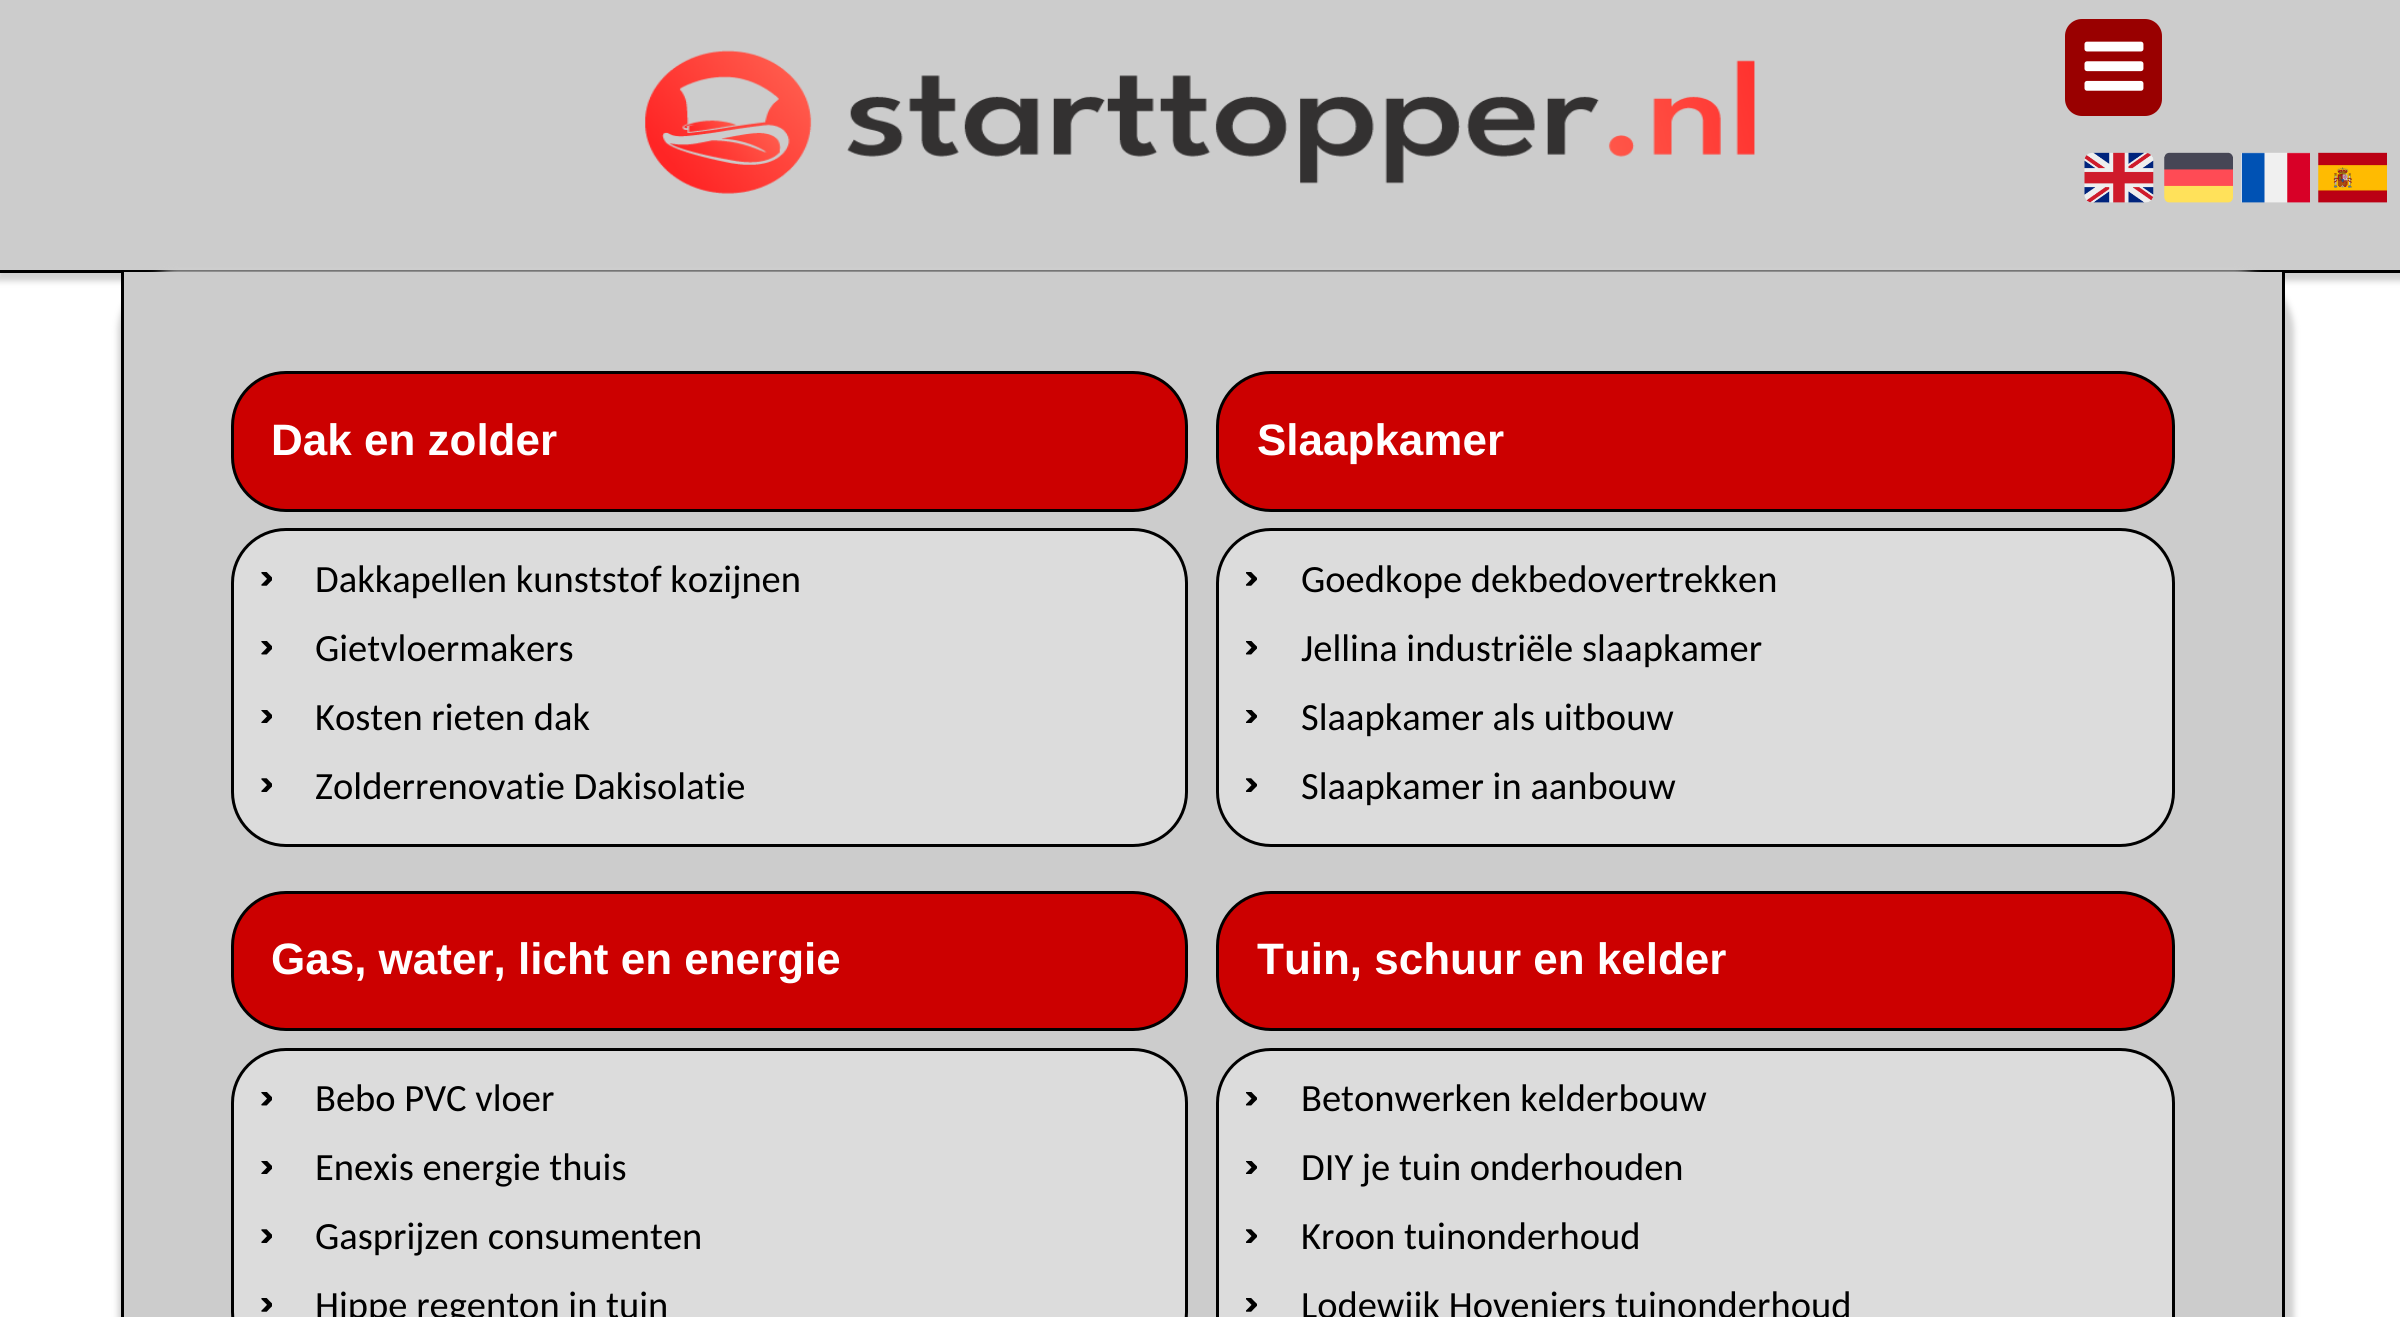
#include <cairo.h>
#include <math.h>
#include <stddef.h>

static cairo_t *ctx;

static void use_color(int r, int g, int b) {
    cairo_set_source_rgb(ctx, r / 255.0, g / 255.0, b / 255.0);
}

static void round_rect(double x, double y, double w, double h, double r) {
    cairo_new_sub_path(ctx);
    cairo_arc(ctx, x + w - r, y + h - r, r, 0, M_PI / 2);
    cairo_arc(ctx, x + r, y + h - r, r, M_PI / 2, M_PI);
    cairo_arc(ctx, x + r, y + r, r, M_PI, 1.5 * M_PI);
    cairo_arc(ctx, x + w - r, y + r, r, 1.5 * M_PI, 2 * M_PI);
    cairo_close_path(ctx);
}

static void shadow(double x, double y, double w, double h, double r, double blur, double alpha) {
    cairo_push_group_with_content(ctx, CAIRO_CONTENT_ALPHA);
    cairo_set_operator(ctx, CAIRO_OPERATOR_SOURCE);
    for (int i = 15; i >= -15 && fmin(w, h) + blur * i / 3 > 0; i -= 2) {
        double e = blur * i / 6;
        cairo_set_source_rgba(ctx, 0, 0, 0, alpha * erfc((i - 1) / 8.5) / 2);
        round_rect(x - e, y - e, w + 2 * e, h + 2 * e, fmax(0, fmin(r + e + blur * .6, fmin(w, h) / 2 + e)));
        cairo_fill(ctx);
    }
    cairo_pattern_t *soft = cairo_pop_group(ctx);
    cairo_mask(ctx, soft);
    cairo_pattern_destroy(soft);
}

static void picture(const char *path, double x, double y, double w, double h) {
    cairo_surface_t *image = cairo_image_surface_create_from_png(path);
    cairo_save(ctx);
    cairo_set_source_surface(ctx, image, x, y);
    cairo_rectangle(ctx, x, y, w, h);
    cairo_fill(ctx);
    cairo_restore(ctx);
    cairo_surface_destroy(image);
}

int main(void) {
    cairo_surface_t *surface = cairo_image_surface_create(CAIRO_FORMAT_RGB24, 2400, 1317);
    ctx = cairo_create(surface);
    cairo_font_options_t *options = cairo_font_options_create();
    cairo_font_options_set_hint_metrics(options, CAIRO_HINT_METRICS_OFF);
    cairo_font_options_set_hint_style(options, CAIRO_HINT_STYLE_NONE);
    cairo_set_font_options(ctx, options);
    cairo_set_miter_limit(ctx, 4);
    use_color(255, 255, 255);
    cairo_paint(ctx);
    use_color(209, 209, 209);
    shadow(-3, -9, 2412, 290, 0, 3, 1);
    use_color(204, 204, 204);
    cairo_rectangle(ctx, 0, 0, 2400, 270);
    cairo_fill(ctx);
    use_color(0, 0, 0);
    cairo_rectangle(ctx, 0, 270, 2400, 3);
    cairo_fill(ctx);
    picture("img1.png", 645, 50, 1110, 144);
    use_color(153, 0, 0);
    round_rect(2065, 19, 97, 97, 17);
    cairo_fill(ctx);
    picture("img2.png", 2084, 41, 60, 50);
    picture("img3.png", 2084, 152, 70, 51);
    picture("img4.png", 2164, 152, 69, 51);
    picture("img5.png", 2241, 152, 69, 51);
    picture("img6.png", 2318, 152, 69, 51);
    use_color(209, 209, 209);
    shadow(118, 270, 2176, 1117, 61, 3, 1);
    use_color(204, 204, 204);
    cairo_rectangle(ctx, 124, 272, 2158, 1045);
    cairo_fill(ctx);
    use_color(0, 0, 0);
    cairo_set_fill_rule(ctx, CAIRO_FILL_RULE_EVEN_ODD);
    cairo_new_path(ctx);
    cairo_move_to(ctx, 121, 272);
    cairo_line_to(ctx, 2285, 272);
    cairo_line_to(ctx, 2285, 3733);
    cairo_curve_to(ctx, 2285, 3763, 2261, 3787, 2231, 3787);
    cairo_line_to(ctx, 175, 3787);
    cairo_curve_to(ctx, 145, 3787, 121, 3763, 121, 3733);
    cairo_close_path(ctx);
    cairo_move_to(ctx, 124, 272);
    cairo_line_to(ctx, 2282, 272);
    cairo_line_to(ctx, 2282, 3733);
    cairo_curve_to(ctx, 2282, 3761, 2260, 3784, 2231, 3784);
    cairo_line_to(ctx, 175, 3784);
    cairo_curve_to(ctx, 147, 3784, 124, 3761, 124, 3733);
    cairo_close_path(ctx);
    cairo_fill(ctx);
    use_color(204, 0, 0);
    round_rect(232.5, 372.5, 954, 138, 53.5);
    cairo_fill_preserve(ctx);
    use_color(0, 0, 0);
    cairo_set_line_width(ctx, 3);
    cairo_stroke(ctx);
    cairo_select_font_face(ctx, "Liberation Sans", CAIRO_FONT_SLANT_NORMAL, CAIRO_FONT_WEIGHT_BOLD);
    cairo_set_font_size(ctx, 44);
    use_color(255, 255, 255);
    cairo_move_to(ctx, 271, 455);
    cairo_show_text(ctx, "Dak en zolder");
    use_color(220, 220, 220);
    round_rect(232.5, 529.5, 954, 316, 53.5);
    cairo_fill_preserve(ctx);
    use_color(0, 0, 0);
    cairo_stroke(ctx);
    picture("img7.png", 261, 572, 11, 14);
    cairo_select_font_face(ctx, "Carlito", CAIRO_FONT_SLANT_NORMAL, CAIRO_FONT_WEIGHT_NORMAL);
    cairo_set_font_size(ctx, 38.5);
    cairo_move_to(ctx, 315, 592);
    cairo_show_text(ctx, "Dakkapellen kunststof kozijnen");
    picture("img8.png", 261, 641, 11, 14);
    cairo_move_to(ctx, 315, 661);
    cairo_show_text(ctx, "Gietvloermakers");
    picture("img9.png", 261, 710, 11, 13);
    cairo_move_to(ctx, 315, 730);
    cairo_show_text(ctx, "Kosten rieten dak");
    picture("img10.png", 261, 778, 11, 14);
    cairo_move_to(ctx, 315, 799);
    cairo_show_text(ctx, "Zolderrenovatie Dakisolatie");
    use_color(204, 0, 0);
    round_rect(1217.5, 372.5, 956, 138, 53.5);
    cairo_fill_preserve(ctx);
    use_color(0, 0, 0);
    cairo_stroke(ctx);
    cairo_select_font_face(ctx, "Liberation Sans", CAIRO_FONT_SLANT_NORMAL, CAIRO_FONT_WEIGHT_BOLD);
    cairo_set_font_size(ctx, 44);
    use_color(255, 255, 255);
    cairo_move_to(ctx, 1257, 455);
    cairo_show_text(ctx, "Slaapkamer");
    use_color(220, 220, 220);
    round_rect(1217.5, 529.5, 956, 316, 53.5);
    cairo_fill_preserve(ctx);
    use_color(0, 0, 0);
    cairo_stroke(ctx);
    picture("img11.png", 1246, 572, 11, 14);
    cairo_select_font_face(ctx, "Carlito", CAIRO_FONT_SLANT_NORMAL, CAIRO_FONT_WEIGHT_NORMAL);
    cairo_set_font_size(ctx, 38.5);
    cairo_move_to(ctx, 1301, 592);
    cairo_show_text(ctx, "Goedkope dekbedovertrekken");
    picture("img12.png", 1246, 641, 11, 14);
    cairo_move_to(ctx, 1301, 661);
    cairo_show_text(ctx, "Jellina industriële slaapkamer");
    picture("img13.png", 1246, 710, 11, 13);
    cairo_move_to(ctx, 1301, 730);
    cairo_show_text(ctx, "Slaapkamer als uitbouw");
    picture("img14.png", 1246, 778, 11, 14);
    cairo_move_to(ctx, 1301, 799);
    cairo_show_text(ctx, "Slaapkamer in aanbouw");
    use_color(204, 0, 0);
    round_rect(232.5, 892.5, 954, 137, 53.5);
    cairo_fill_preserve(ctx);
    use_color(0, 0, 0);
    cairo_stroke(ctx);
    cairo_select_font_face(ctx, "Liberation Sans", CAIRO_FONT_SLANT_NORMAL, CAIRO_FONT_WEIGHT_BOLD);
    cairo_set_font_size(ctx, 44);
    use_color(255, 255, 255);
    cairo_move_to(ctx, 271, 974);
    cairo_show_text(ctx, "Gas, water, licht en energie");
    use_color(220, 220, 220);
    round_rect(232.5, 1049.5, 954, 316, 53.5);
    cairo_fill_preserve(ctx);
    use_color(0, 0, 0);
    cairo_stroke(ctx);
    picture("img8.png", 261, 1092, 11, 14);
    cairo_select_font_face(ctx, "Carlito", CAIRO_FONT_SLANT_NORMAL, CAIRO_FONT_WEIGHT_NORMAL);
    cairo_set_font_size(ctx, 38.5);
    cairo_move_to(ctx, 315, 1111);
    cairo_show_text(ctx, "Bebo PVC vloer");
    picture("img9.png", 261, 1161, 11, 13);
    cairo_move_to(ctx, 315, 1180);
    cairo_show_text(ctx, "Enexis energie thuis");
    picture("img10.png", 261, 1229, 11, 14);
    cairo_move_to(ctx, 315, 1249);
    cairo_show_text(ctx, "Gasprijzen consumenten");
    picture("img7.png", 261, 1298, 11, 14);
    cairo_move_to(ctx, 315, 1318);
    cairo_show_text(ctx, "Hippe regenton in tuin");
    use_color(204, 0, 0);
    round_rect(1217.5, 892.5, 956, 137, 53.5);
    cairo_fill_preserve(ctx);
    use_color(0, 0, 0);
    cairo_stroke(ctx);
    cairo_select_font_face(ctx, "Liberation Sans", CAIRO_FONT_SLANT_NORMAL, CAIRO_FONT_WEIGHT_BOLD);
    cairo_set_font_size(ctx, 44);
    use_color(255, 255, 255);
    cairo_move_to(ctx, 1257, 974);
    cairo_show_text(ctx, "Tuin, schuur en kelder");
    use_color(220, 220, 220);
    round_rect(1217.5, 1049.5, 956, 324, 53.5);
    cairo_fill_preserve(ctx);
    use_color(0, 0, 0);
    cairo_stroke(ctx);
    picture("img12.png", 1246, 1092, 11, 14);
    cairo_select_font_face(ctx, "Carlito", CAIRO_FONT_SLANT_NORMAL, CAIRO_FONT_WEIGHT_NORMAL);
    cairo_set_font_size(ctx, 38.5);
    cairo_move_to(ctx, 1301, 1111);
    cairo_show_text(ctx, "Betonwerken kelderbouw");
    picture("img13.png", 1246, 1161, 11, 13);
    cairo_move_to(ctx, 1301, 1180);
    cairo_show_text(ctx, "DIY je tuin onderhouden");
    picture("img14.png", 1246, 1229, 11, 14);
    cairo_move_to(ctx, 1301, 1249);
    cairo_show_text(ctx, "Kroon tuinonderhoud");
    picture("img11.png", 1246, 1298, 11, 14);
    cairo_move_to(ctx, 1301, 1318);
    cairo_show_text(ctx, "Lodewijk Hoveniers tuinonderhoud");
    cairo_surface_write_to_png(surface, "result.png");
    cairo_font_options_destroy(options);
    cairo_destroy(ctx);
    cairo_surface_destroy(surface);
    return 0;
}
